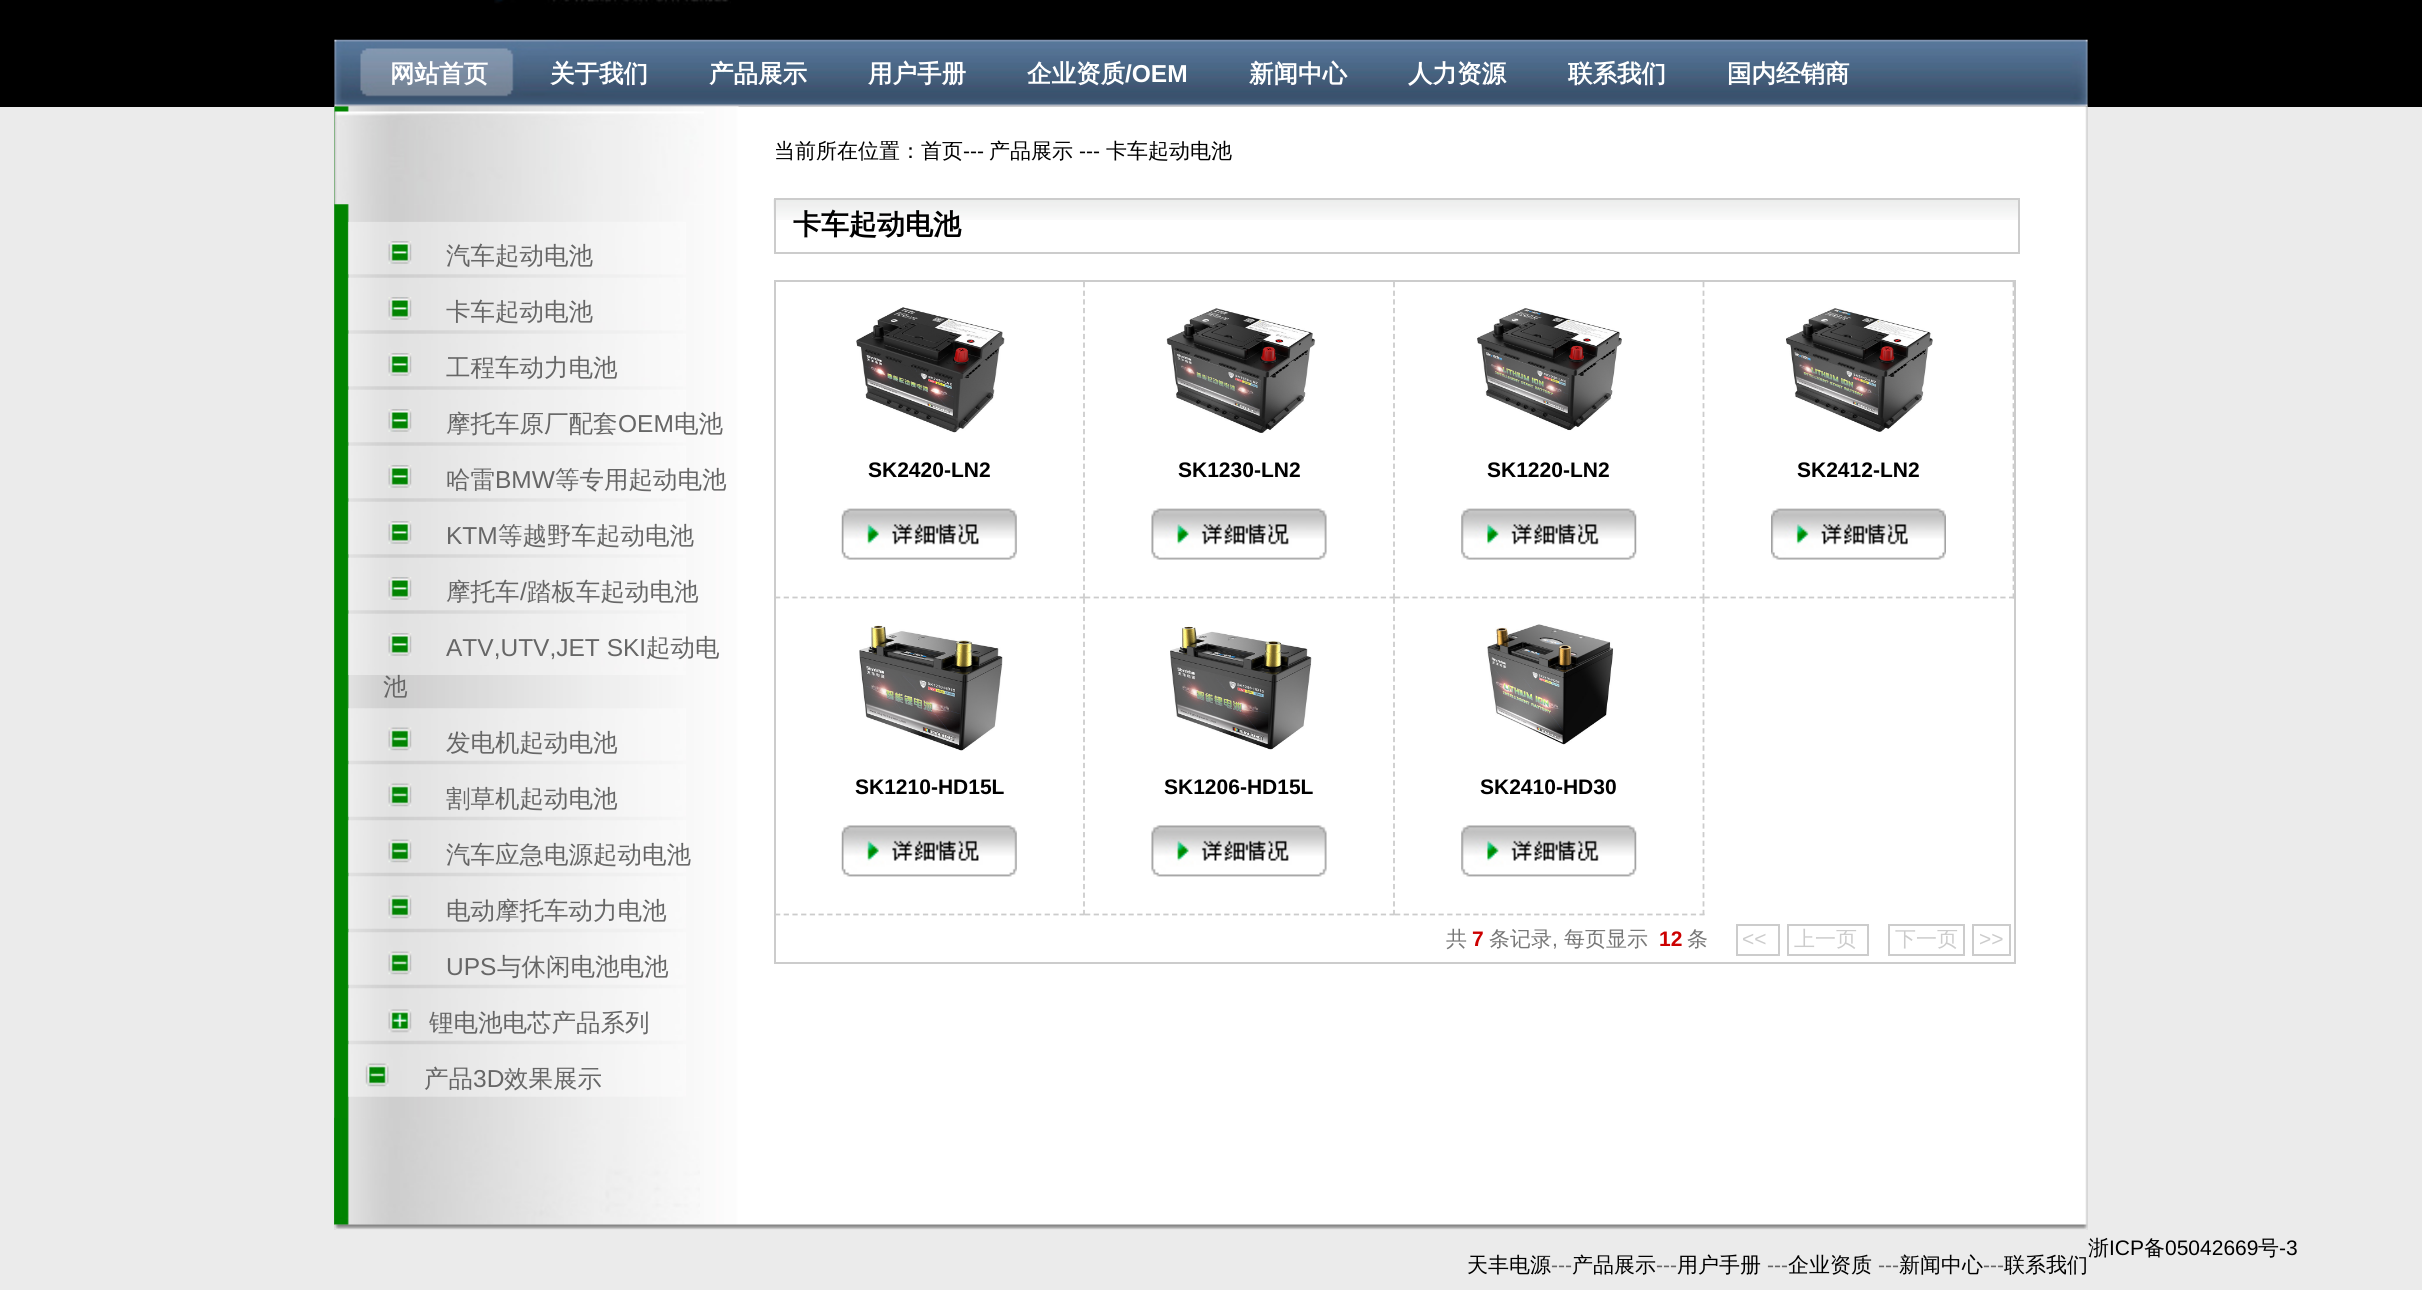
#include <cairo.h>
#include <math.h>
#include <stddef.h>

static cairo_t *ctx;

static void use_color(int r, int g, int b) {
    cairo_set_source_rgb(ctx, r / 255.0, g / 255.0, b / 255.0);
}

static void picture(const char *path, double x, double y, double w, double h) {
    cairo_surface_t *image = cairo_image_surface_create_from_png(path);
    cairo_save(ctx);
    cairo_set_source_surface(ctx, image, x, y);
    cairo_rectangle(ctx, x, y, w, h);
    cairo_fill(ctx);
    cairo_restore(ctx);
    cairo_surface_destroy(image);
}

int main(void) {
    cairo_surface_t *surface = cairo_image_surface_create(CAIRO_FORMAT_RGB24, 2422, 1290);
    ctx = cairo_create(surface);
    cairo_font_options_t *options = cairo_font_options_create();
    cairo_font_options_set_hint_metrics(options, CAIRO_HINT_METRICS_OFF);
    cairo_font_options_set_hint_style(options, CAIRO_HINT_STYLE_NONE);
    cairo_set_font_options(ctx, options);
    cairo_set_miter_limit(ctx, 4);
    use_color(235, 235, 235);
    cairo_paint(ctx);
    use_color(0, 0, 0);
    cairo_rectangle(ctx, 0, 0, 2422, 107);
    cairo_fill(ctx);
    picture("img1.png", 494, 0, 237, 5);
    picture("img2.png", 334, 39, 1754, 68);
    cairo_select_font_face(ctx, "WenQuanYi Zen Hei", CAIRO_FONT_SLANT_NORMAL, CAIRO_FONT_WEIGHT_BOLD);
    cairo_set_font_size(ctx, 24.5);
    use_color(255, 255, 255);
    cairo_move_to(ctx, 390, 82);
    cairo_show_text(ctx, "网站首页");
    cairo_move_to(ctx, 550, 82);
    cairo_show_text(ctx, "关于我们");
    cairo_move_to(ctx, 709, 82);
    cairo_show_text(ctx, "产品展示");
    cairo_move_to(ctx, 868, 82);
    cairo_show_text(ctx, "用户手册");
    cairo_move_to(ctx, 1027, 82);
    cairo_show_text(ctx, "企业资质");
    cairo_select_font_face(ctx, "Liberation Sans", CAIRO_FONT_SLANT_NORMAL, CAIRO_FONT_WEIGHT_BOLD);
    cairo_move_to(ctx, 1125, 82);
    cairo_show_text(ctx, "/OEM");
    cairo_select_font_face(ctx, "WenQuanYi Zen Hei", CAIRO_FONT_SLANT_NORMAL, CAIRO_FONT_WEIGHT_BOLD);
    cairo_move_to(ctx, 1249, 82);
    cairo_show_text(ctx, "新闻中心");
    cairo_move_to(ctx, 1408, 82);
    cairo_show_text(ctx, "人力资源");
    cairo_move_to(ctx, 1568, 82);
    cairo_show_text(ctx, "联系我们");
    cairo_move_to(ctx, 1727, 82);
    cairo_show_text(ctx, "国内经销商");
    picture("img3.png", 334, 106, 1754, 1124);
    picture("img4.png", 334, 106, 405, 1119);
    picture("img5.png", 334, 111, 269, 1114);
    picture("img6.png", 334, 111, 370, 94);
    picture("img7.png", 348, 221, 338, 54);
    picture("img8.png", 388, 241, 24, 23);
    cairo_select_font_face(ctx, "WenQuanYi Zen Hei Medium", CAIRO_FONT_SLANT_NORMAL, CAIRO_FONT_WEIGHT_NORMAL);
    use_color(102, 102, 102);
    cairo_move_to(ctx, 446, 264);
    cairo_show_text(ctx, "汽车起动电池");
    picture("img9.png", 348, 277, 338, 54);
    picture("img8.png", 388, 297, 24, 23);
    cairo_move_to(ctx, 446, 320);
    cairo_show_text(ctx, "卡车起动电池");
    picture("img9.png", 348, 333, 338, 54);
    picture("img8.png", 388, 353, 24, 23);
    cairo_move_to(ctx, 446, 376);
    cairo_show_text(ctx, "工程车动力电池");
    picture("img9.png", 348, 389, 338, 54);
    picture("img8.png", 388, 409, 24, 23);
    cairo_move_to(ctx, 446, 432);
    cairo_show_text(ctx, "摩托车原厂配套");
    cairo_select_font_face(ctx, "Liberation Sans", CAIRO_FONT_SLANT_NORMAL, CAIRO_FONT_WEIGHT_NORMAL);
    cairo_move_to(ctx, 618, 432);
    cairo_show_text(ctx, "OEM");
    cairo_select_font_face(ctx, "WenQuanYi Zen Hei Medium", CAIRO_FONT_SLANT_NORMAL, CAIRO_FONT_WEIGHT_NORMAL);
    cairo_move_to(ctx, 674, 432);
    cairo_show_text(ctx, "电池");
    picture("img9.png", 348, 445, 338, 54);
    picture("img8.png", 388, 465, 24, 23);
    cairo_move_to(ctx, 446, 488);
    cairo_show_text(ctx, "哈雷");
    cairo_select_font_face(ctx, "Liberation Sans", CAIRO_FONT_SLANT_NORMAL, CAIRO_FONT_WEIGHT_NORMAL);
    cairo_move_to(ctx, 495, 488);
    cairo_show_text(ctx, "BMW");
    cairo_select_font_face(ctx, "WenQuanYi Zen Hei Medium", CAIRO_FONT_SLANT_NORMAL, CAIRO_FONT_WEIGHT_NORMAL);
    cairo_move_to(ctx, 555, 488);
    cairo_show_text(ctx, "等专用起动电池");
    picture("img9.png", 348, 501, 338, 54);
    picture("img8.png", 388, 521, 24, 23);
    cairo_select_font_face(ctx, "Liberation Sans", CAIRO_FONT_SLANT_NORMAL, CAIRO_FONT_WEIGHT_NORMAL);
    cairo_move_to(ctx, 446, 544);
    cairo_show_text(ctx, "KTM");
    cairo_select_font_face(ctx, "WenQuanYi Zen Hei Medium", CAIRO_FONT_SLANT_NORMAL, CAIRO_FONT_WEIGHT_NORMAL);
    cairo_move_to(ctx, 498, 544);
    cairo_show_text(ctx, "等越野车起动电池");
    picture("img9.png", 348, 557, 338, 54);
    picture("img8.png", 388, 577, 24, 23);
    cairo_move_to(ctx, 446, 600);
    cairo_show_text(ctx, "摩托车");
    cairo_select_font_face(ctx, "Liberation Sans", CAIRO_FONT_SLANT_NORMAL, CAIRO_FONT_WEIGHT_NORMAL);
    cairo_move_to(ctx, 520, 600);
    cairo_show_text(ctx, "/");
    cairo_select_font_face(ctx, "WenQuanYi Zen Hei Medium", CAIRO_FONT_SLANT_NORMAL, CAIRO_FONT_WEIGHT_NORMAL);
    cairo_move_to(ctx, 527, 600);
    cairo_show_text(ctx, "踏板车起动电池");
    picture("img10.png", 348, 613, 338, 62);
    picture("img8.png", 388, 633, 24, 23);
    cairo_select_font_face(ctx, "Liberation Sans", CAIRO_FONT_SLANT_NORMAL, CAIRO_FONT_WEIGHT_NORMAL);
    cairo_move_to(ctx, 446, 656);
    cairo_show_text(ctx, "ATV,UTV,JET SKI");
    cairo_select_font_face(ctx, "WenQuanYi Zen Hei Medium", CAIRO_FONT_SLANT_NORMAL, CAIRO_FONT_WEIGHT_NORMAL);
    cairo_move_to(ctx, 646, 656);
    cairo_show_text(ctx, "起动电");
    cairo_move_to(ctx, 383, 695);
    cairo_show_text(ctx, "池");
    picture("img11.png", 348, 708, 338, 53);
    picture("img12.png", 388, 727, 24, 24);
    cairo_move_to(ctx, 446, 751);
    cairo_show_text(ctx, "发电机起动电池");
    picture("img11.png", 348, 764, 338, 53);
    picture("img12.png", 388, 783, 24, 24);
    cairo_move_to(ctx, 446, 807);
    cairo_show_text(ctx, "割草机起动电池");
    picture("img11.png", 348, 820, 338, 53);
    picture("img12.png", 388, 839, 24, 24);
    cairo_move_to(ctx, 446, 863);
    cairo_show_text(ctx, "汽车应急电源起动电池");
    picture("img11.png", 348, 876, 338, 53);
    picture("img12.png", 388, 895, 24, 24);
    cairo_move_to(ctx, 446, 919);
    cairo_show_text(ctx, "电动摩托车动力电池");
    picture("img11.png", 348, 932, 338, 53);
    picture("img12.png", 388, 951, 24, 24);
    cairo_select_font_face(ctx, "Liberation Sans", CAIRO_FONT_SLANT_NORMAL, CAIRO_FONT_WEIGHT_NORMAL);
    cairo_move_to(ctx, 446, 975);
    cairo_show_text(ctx, "UPS");
    cairo_select_font_face(ctx, "WenQuanYi Zen Hei Medium", CAIRO_FONT_SLANT_NORMAL, CAIRO_FONT_WEIGHT_NORMAL);
    cairo_move_to(ctx, 497, 975);
    cairo_show_text(ctx, "与休闲电池电池");
    picture("img11.png", 348, 988, 338, 53);
    picture("img13.png", 388, 1009, 24, 24);
    cairo_move_to(ctx, 429, 1031);
    cairo_show_text(ctx, "锂电池电芯产品系列");
    picture("img11.png", 348, 1044, 338, 53);
    picture("img14.png", 365, 1063, 24, 24);
    cairo_move_to(ctx, 424, 1087);
    cairo_show_text(ctx, "产品");
    cairo_select_font_face(ctx, "Liberation Sans", CAIRO_FONT_SLANT_NORMAL, CAIRO_FONT_WEIGHT_NORMAL);
    cairo_move_to(ctx, 473, 1087);
    cairo_show_text(ctx, "3D");
    cairo_select_font_face(ctx, "WenQuanYi Zen Hei Medium", CAIRO_FONT_SLANT_NORMAL, CAIRO_FONT_WEIGHT_NORMAL);
    cairo_move_to(ctx, 504, 1087);
    cairo_show_text(ctx, "效果展示");
    picture("img15.png", 334, 1117, 366, 108);
    cairo_set_font_size(ctx, 21);
    use_color(0, 0, 0);
    cairo_move_to(ctx, 774, 158);
    cairo_show_text(ctx, "当前所在位置：首页");
    cairo_select_font_face(ctx, "Liberation Sans", CAIRO_FONT_SLANT_NORMAL, CAIRO_FONT_WEIGHT_NORMAL);
    cairo_move_to(ctx, 963, 158);
    cairo_show_text(ctx, "---");
    cairo_select_font_face(ctx, "WenQuanYi Zen Hei Medium", CAIRO_FONT_SLANT_NORMAL, CAIRO_FONT_WEIGHT_NORMAL);
    cairo_move_to(ctx, 989, 158);
    cairo_show_text(ctx, "产品展示");
    cairo_select_font_face(ctx, "Liberation Sans", CAIRO_FONT_SLANT_NORMAL, CAIRO_FONT_WEIGHT_NORMAL);
    cairo_move_to(ctx, 1079, 158);
    cairo_show_text(ctx, "---");
    cairo_select_font_face(ctx, "WenQuanYi Zen Hei Medium", CAIRO_FONT_SLANT_NORMAL, CAIRO_FONT_WEIGHT_NORMAL);
    cairo_move_to(ctx, 1106, 158);
    cairo_show_text(ctx, "卡车起动电池");
    picture("img16.png", 773, 199, 1245, 21);
    cairo_rectangle(ctx, 775, 199, 1244, 54);
    use_color(204, 204, 204);
    cairo_stroke(ctx);
    cairo_select_font_face(ctx, "WenQuanYi Zen Hei", CAIRO_FONT_SLANT_NORMAL, CAIRO_FONT_WEIGHT_BOLD);
    cairo_set_font_size(ctx, 28);
    use_color(0, 0, 0);
    cairo_move_to(ctx, 793, 234);
    cairo_show_text(ctx, "卡车起动电池");
    cairo_rectangle(ctx, 775, 281, 1240, 682);
    use_color(204, 204, 204);
    cairo_stroke(ctx);
    cairo_new_path(ctx);
    cairo_move_to(ctx, 1084, 282);
    cairo_line_to(ctx, 1084, 598.5);
    cairo_set_line_width(ctx, 1.8);
    cairo_set_dash(ctx, (double[]){5.25, 3.4}, 2, 0);
    cairo_stroke(ctx);
    cairo_new_path(ctx);
    cairo_move_to(ctx, 775, 597.5);
    cairo_line_to(ctx, 1085, 597.5);
    cairo_set_dash(ctx, (double[]){5.25, 3.45}, 2, 0);
    cairo_stroke(ctx);
    picture("img17.png", 856, 307, 149, 126);
    cairo_select_font_face(ctx, "Liberation Sans", CAIRO_FONT_SLANT_NORMAL, CAIRO_FONT_WEIGHT_BOLD);
    cairo_set_font_size(ctx, 21);
    use_color(0, 0, 0);
    cairo_move_to(ctx, 868, 477);
    cairo_show_text(ctx, "SK2420-LN2");
    picture("img18.png", 841, 508, 176, 52);
    cairo_new_path(ctx);
    cairo_move_to(ctx, 1394, 282);
    cairo_line_to(ctx, 1394, 598.5);
    use_color(204, 204, 204);
    cairo_set_dash(ctx, (double[]){5.25, 3.4}, 2, 0);
    cairo_stroke(ctx);
    cairo_new_path(ctx);
    cairo_move_to(ctx, 1085, 597.5);
    cairo_line_to(ctx, 1395, 597.5);
    cairo_set_dash(ctx, (double[]){5.25, 3.45}, 2, 0);
    cairo_stroke(ctx);
    picture("img19.png", 1166, 308, 150, 125);
    use_color(0, 0, 0);
    cairo_move_to(ctx, 1178, 477);
    cairo_show_text(ctx, "SK1230-LN2");
    picture("img20.png", 1151, 508, 176, 52);
    cairo_new_path(ctx);
    cairo_move_to(ctx, 1703.5, 282);
    cairo_line_to(ctx, 1703.5, 598.5);
    use_color(204, 204, 204);
    cairo_set_dash(ctx, (double[]){5.25, 3.4}, 2, 0);
    cairo_stroke(ctx);
    cairo_new_path(ctx);
    cairo_move_to(ctx, 1395, 597.5);
    cairo_line_to(ctx, 1704.5, 597.5);
    cairo_set_dash(ctx, (double[]){5.25, 3.45}, 2, 0);
    cairo_stroke(ctx);
    picture("img21.png", 1477, 308, 145, 123);
    use_color(0, 0, 0);
    cairo_move_to(ctx, 1487, 477);
    cairo_show_text(ctx, "SK1220-LN2");
    picture("img22.png", 1461, 508, 176, 52);
    cairo_new_path(ctx);
    cairo_move_to(ctx, 2013.5, 282);
    cairo_line_to(ctx, 2013.5, 598.5);
    use_color(204, 204, 204);
    cairo_set_dash(ctx, (double[]){5.25, 3.4}, 2, 0);
    cairo_stroke(ctx);
    cairo_new_path(ctx);
    cairo_move_to(ctx, 1704.5, 597.5);
    cairo_line_to(ctx, 2014, 597.5);
    cairo_set_dash(ctx, (double[]){5.25, 3.45}, 2, 0);
    cairo_stroke(ctx);
    picture("img23.png", 1786, 308, 147, 124);
    use_color(0, 0, 0);
    cairo_move_to(ctx, 1797, 477);
    cairo_show_text(ctx, "SK2412-LN2");
    picture("img24.png", 1771, 508, 175, 52);
    cairo_new_path(ctx);
    cairo_move_to(ctx, 1084, 598.5);
    cairo_line_to(ctx, 1084, 915);
    use_color(204, 204, 204);
    cairo_set_dash(ctx, (double[]){5.25, 3.4}, 2, 0);
    cairo_stroke(ctx);
    cairo_new_path(ctx);
    cairo_move_to(ctx, 775, 914.5);
    cairo_line_to(ctx, 1085, 914.5);
    cairo_set_dash(ctx, (double[]){5.25, 3.45}, 2, 0);
    cairo_stroke(ctx);
    picture("img25.png", 859, 625, 144, 126);
    use_color(0, 0, 0);
    cairo_move_to(ctx, 855, 794);
    cairo_show_text(ctx, "SK1210-HD15L");
    picture("img26.png", 841, 825, 176, 52);
    cairo_new_path(ctx);
    cairo_move_to(ctx, 1394, 598.5);
    cairo_line_to(ctx, 1394, 915);
    use_color(204, 204, 204);
    cairo_set_dash(ctx, (double[]){5.25, 3.4}, 2, 0);
    cairo_stroke(ctx);
    cairo_new_path(ctx);
    cairo_move_to(ctx, 1085, 914.5);
    cairo_line_to(ctx, 1395, 914.5);
    cairo_set_dash(ctx, (double[]){5.25, 3.45}, 2, 0);
    cairo_stroke(ctx);
    picture("img27.png", 1170, 626, 142, 124);
    use_color(0, 0, 0);
    cairo_move_to(ctx, 1164, 794);
    cairo_show_text(ctx, "SK1206-HD15L");
    picture("img28.png", 1151, 825, 176, 52);
    cairo_new_path(ctx);
    cairo_move_to(ctx, 1703.5, 598.5);
    cairo_line_to(ctx, 1703.5, 915);
    use_color(204, 204, 204);
    cairo_set_dash(ctx, (double[]){5.25, 3.4}, 2, 0);
    cairo_stroke(ctx);
    cairo_new_path(ctx);
    cairo_move_to(ctx, 1395, 914.5);
    cairo_line_to(ctx, 1704.5, 914.5);
    cairo_set_dash(ctx, (double[]){5.25, 3.45}, 2, 0);
    cairo_stroke(ctx);
    picture("img29.png", 1487, 624, 127, 121);
    use_color(0, 0, 0);
    cairo_move_to(ctx, 1480, 794);
    cairo_show_text(ctx, "SK2410-HD30");
    picture("img30.png", 1461, 825, 176, 52);
    cairo_select_font_face(ctx, "WenQuanYi Zen Hei Medium", CAIRO_FONT_SLANT_NORMAL, CAIRO_FONT_WEIGHT_NORMAL);
    use_color(119, 119, 119);
    cairo_move_to(ctx, 1446, 946);
    cairo_show_text(ctx, "共");
    cairo_select_font_face(ctx, "Liberation Sans", CAIRO_FONT_SLANT_NORMAL, CAIRO_FONT_WEIGHT_BOLD);
    use_color(204, 0, 0);
    cairo_move_to(ctx, 1472, 946);
    cairo_show_text(ctx, "7");
    cairo_select_font_face(ctx, "WenQuanYi Zen Hei Medium", CAIRO_FONT_SLANT_NORMAL, CAIRO_FONT_WEIGHT_NORMAL);
    use_color(119, 119, 119);
    cairo_move_to(ctx, 1489, 946);
    cairo_show_text(ctx, "条记录");
    cairo_move_to(ctx, 1564, 946);
    cairo_show_text(ctx, "每页显示");
    cairo_select_font_face(ctx, "Liberation Sans", CAIRO_FONT_SLANT_NORMAL, CAIRO_FONT_WEIGHT_BOLD);
    use_color(204, 0, 0);
    cairo_move_to(ctx, 1659, 946);
    cairo_show_text(ctx, "12");
    cairo_select_font_face(ctx, "WenQuanYi Zen Hei Medium", CAIRO_FONT_SLANT_NORMAL, CAIRO_FONT_WEIGHT_NORMAL);
    use_color(119, 119, 119);
    cairo_move_to(ctx, 1687, 946);
    cairo_show_text(ctx, "条");
    cairo_rectangle(ctx, 1737, 925, 42, 30);
    use_color(204, 204, 204);
    cairo_set_line_width(ctx, 2);
    cairo_set_dash(ctx, NULL, 0, 0);
    cairo_stroke(ctx);
    cairo_select_font_face(ctx, "Liberation Sans", CAIRO_FONT_SLANT_NORMAL, CAIRO_FONT_WEIGHT_NORMAL);
    cairo_move_to(ctx, 1742, 946);
    cairo_show_text(ctx, "<<");
    cairo_rectangle(ctx, 1788, 925, 80, 30);
    cairo_stroke(ctx);
    cairo_select_font_face(ctx, "WenQuanYi Zen Hei Medium", CAIRO_FONT_SLANT_NORMAL, CAIRO_FONT_WEIGHT_NORMAL);
    cairo_move_to(ctx, 1794, 946);
    cairo_show_text(ctx, "上一页");
    cairo_rectangle(ctx, 1889, 925, 75, 30);
    cairo_stroke(ctx);
    cairo_move_to(ctx, 1895, 946);
    cairo_show_text(ctx, "下一页");
    cairo_rectangle(ctx, 1973, 925, 37, 30);
    cairo_stroke(ctx);
    cairo_select_font_face(ctx, "Liberation Sans", CAIRO_FONT_SLANT_NORMAL, CAIRO_FONT_WEIGHT_NORMAL);
    cairo_move_to(ctx, 1979, 946);
    cairo_show_text(ctx, ">>");
    use_color(119, 119, 119);
    cairo_move_to(ctx, 1552, 946);
    cairo_show_text(ctx, ",");
    picture("img31.png", 334, 1224, 1754, 6);
    cairo_select_font_face(ctx, "WenQuanYi Zen Hei Medium", CAIRO_FONT_SLANT_NORMAL, CAIRO_FONT_WEIGHT_NORMAL);
    use_color(0, 0, 0);
    cairo_move_to(ctx, 2088, 1255);
    cairo_show_text(ctx, "浙");
    cairo_select_font_face(ctx, "Liberation Sans", CAIRO_FONT_SLANT_NORMAL, CAIRO_FONT_WEIGHT_NORMAL);
    cairo_move_to(ctx, 2109, 1255);
    cairo_show_text(ctx, "ICP");
    cairo_select_font_face(ctx, "WenQuanYi Zen Hei Medium", CAIRO_FONT_SLANT_NORMAL, CAIRO_FONT_WEIGHT_NORMAL);
    cairo_move_to(ctx, 2144, 1255);
    cairo_show_text(ctx, "备");
    cairo_select_font_face(ctx, "Liberation Sans", CAIRO_FONT_SLANT_NORMAL, CAIRO_FONT_WEIGHT_NORMAL);
    cairo_move_to(ctx, 2165, 1255);
    cairo_show_text(ctx, "05042669");
    cairo_select_font_face(ctx, "WenQuanYi Zen Hei Medium", CAIRO_FONT_SLANT_NORMAL, CAIRO_FONT_WEIGHT_NORMAL);
    cairo_move_to(ctx, 2258, 1255);
    cairo_show_text(ctx, "号");
    cairo_select_font_face(ctx, "Liberation Sans", CAIRO_FONT_SLANT_NORMAL, CAIRO_FONT_WEIGHT_NORMAL);
    cairo_move_to(ctx, 2279, 1255);
    cairo_show_text(ctx, "-3");
    cairo_select_font_face(ctx, "WenQuanYi Zen Hei Medium", CAIRO_FONT_SLANT_NORMAL, CAIRO_FONT_WEIGHT_NORMAL);
    cairo_move_to(ctx, 1467, 1272);
    cairo_show_text(ctx, "天丰电源");
    cairo_select_font_face(ctx, "Liberation Sans", CAIRO_FONT_SLANT_NORMAL, CAIRO_FONT_WEIGHT_NORMAL);
    use_color(102, 102, 102);
    cairo_move_to(ctx, 1551, 1272);
    cairo_show_text(ctx, "---");
    cairo_select_font_face(ctx, "WenQuanYi Zen Hei Medium", CAIRO_FONT_SLANT_NORMAL, CAIRO_FONT_WEIGHT_NORMAL);
    use_color(0, 0, 0);
    cairo_move_to(ctx, 1572, 1272);
    cairo_show_text(ctx, "产品展示");
    cairo_select_font_face(ctx, "Liberation Sans", CAIRO_FONT_SLANT_NORMAL, CAIRO_FONT_WEIGHT_NORMAL);
    use_color(102, 102, 102);
    cairo_move_to(ctx, 1656, 1272);
    cairo_show_text(ctx, "---");
    cairo_select_font_face(ctx, "WenQuanYi Zen Hei Medium", CAIRO_FONT_SLANT_NORMAL, CAIRO_FONT_WEIGHT_NORMAL);
    use_color(0, 0, 0);
    cairo_move_to(ctx, 1677, 1272);
    cairo_show_text(ctx, "用户手册");
    cairo_select_font_face(ctx, "Liberation Sans", CAIRO_FONT_SLANT_NORMAL, CAIRO_FONT_WEIGHT_NORMAL);
    use_color(102, 102, 102);
    cairo_move_to(ctx, 1767, 1272);
    cairo_show_text(ctx, "---");
    cairo_select_font_face(ctx, "WenQuanYi Zen Hei Medium", CAIRO_FONT_SLANT_NORMAL, CAIRO_FONT_WEIGHT_NORMAL);
    use_color(0, 0, 0);
    cairo_move_to(ctx, 1788, 1272);
    cairo_show_text(ctx, "企业资质");
    cairo_select_font_face(ctx, "Liberation Sans", CAIRO_FONT_SLANT_NORMAL, CAIRO_FONT_WEIGHT_NORMAL);
    use_color(102, 102, 102);
    cairo_move_to(ctx, 1878, 1272);
    cairo_show_text(ctx, "---");
    cairo_select_font_face(ctx, "WenQuanYi Zen Hei Medium", CAIRO_FONT_SLANT_NORMAL, CAIRO_FONT_WEIGHT_NORMAL);
    use_color(0, 0, 0);
    cairo_move_to(ctx, 1899, 1272);
    cairo_show_text(ctx, "新闻中心");
    cairo_select_font_face(ctx, "Liberation Sans", CAIRO_FONT_SLANT_NORMAL, CAIRO_FONT_WEIGHT_NORMAL);
    use_color(102, 102, 102);
    cairo_move_to(ctx, 1983, 1272);
    cairo_show_text(ctx, "---");
    cairo_select_font_face(ctx, "WenQuanYi Zen Hei Medium", CAIRO_FONT_SLANT_NORMAL, CAIRO_FONT_WEIGHT_NORMAL);
    use_color(0, 0, 0);
    cairo_move_to(ctx, 2004, 1272);
    cairo_show_text(ctx, "联系我们");
    cairo_surface_write_to_png(surface, "result.png");
    cairo_font_options_destroy(options);
    cairo_destroy(ctx);
    cairo_surface_destroy(surface);
    return 0;
}
